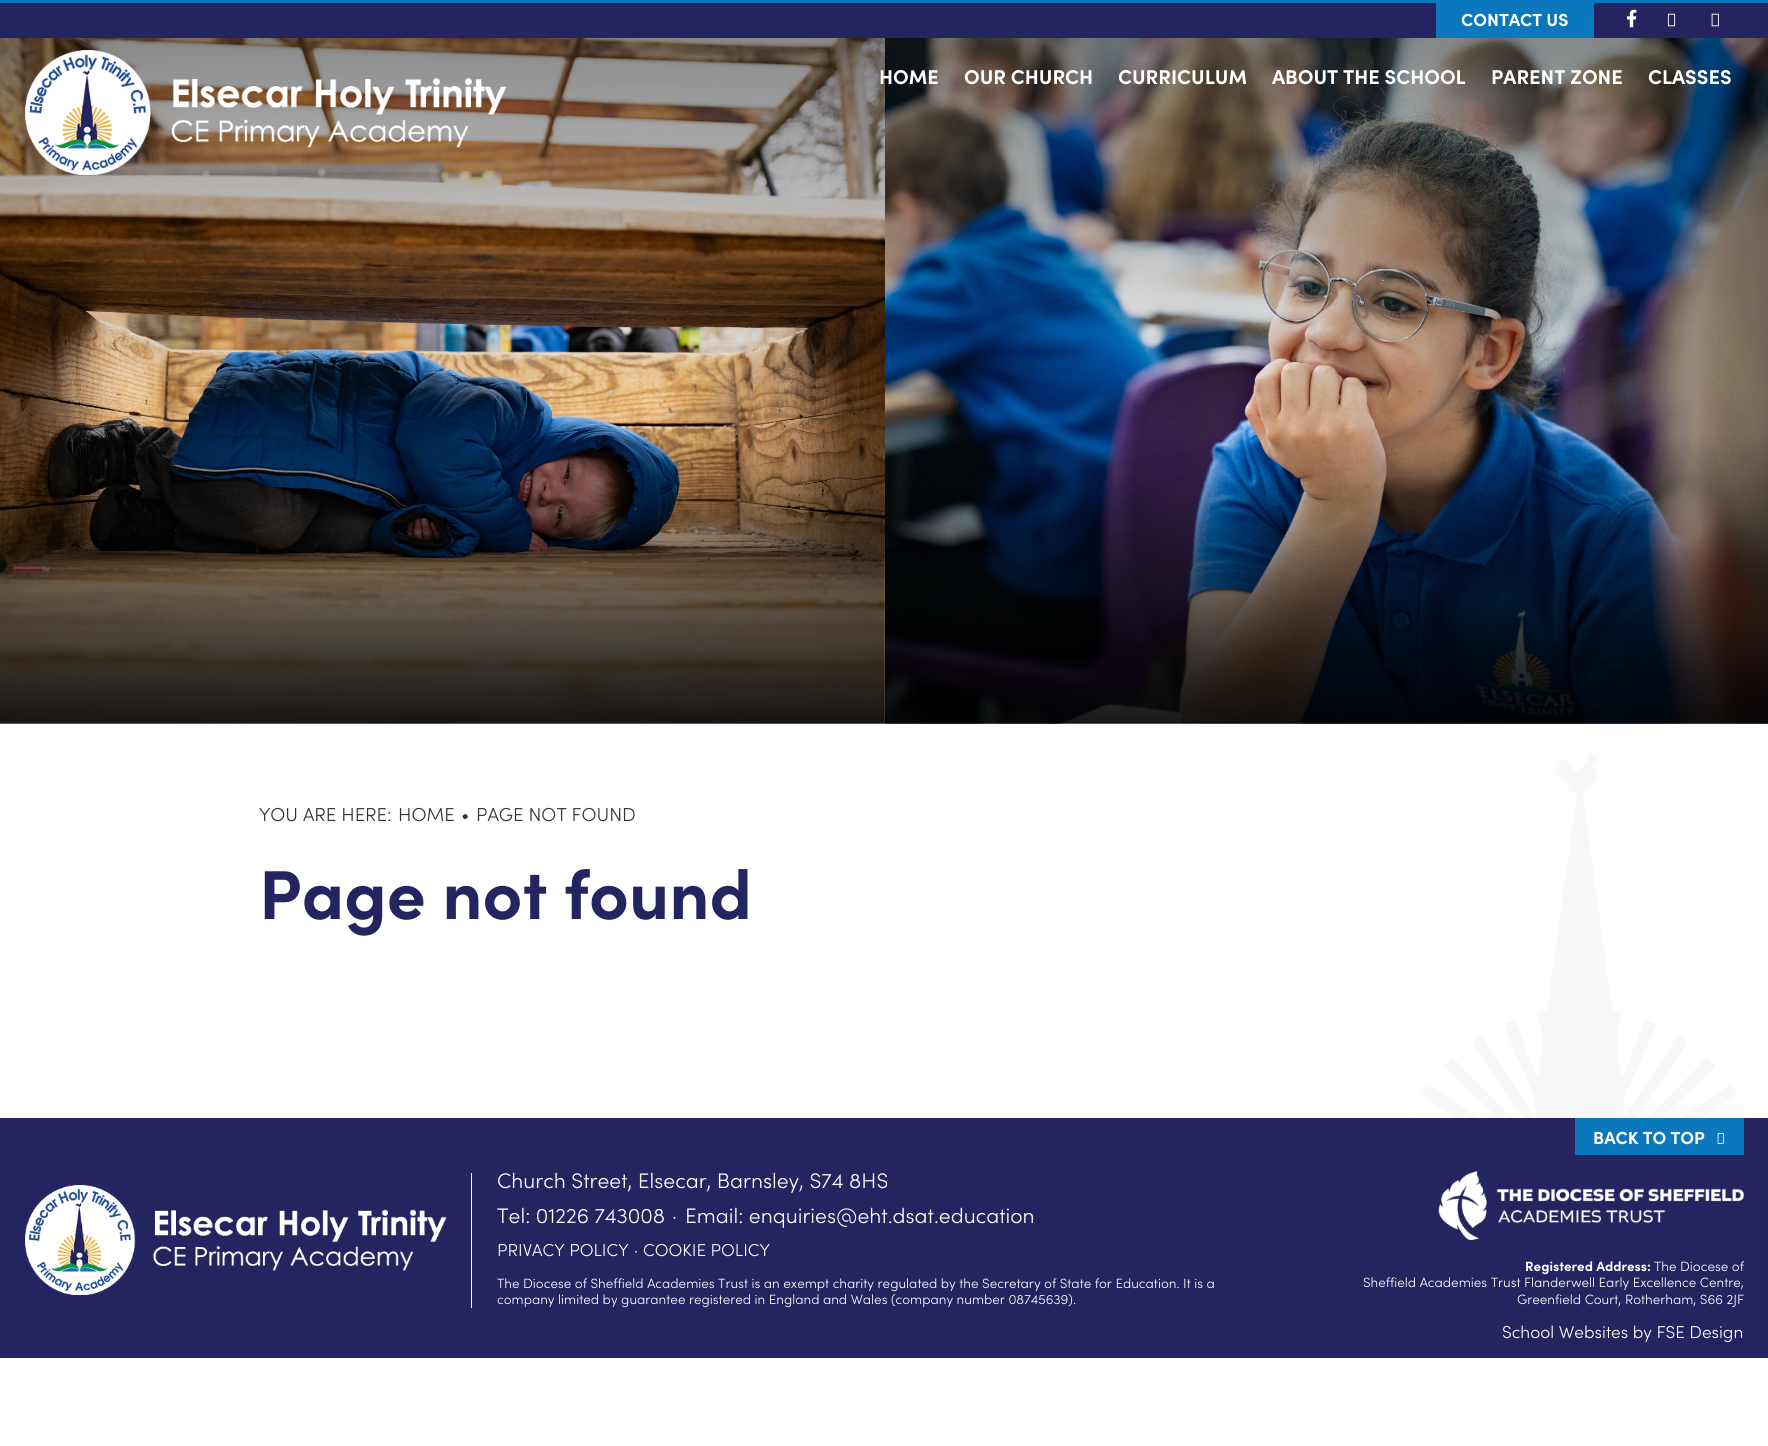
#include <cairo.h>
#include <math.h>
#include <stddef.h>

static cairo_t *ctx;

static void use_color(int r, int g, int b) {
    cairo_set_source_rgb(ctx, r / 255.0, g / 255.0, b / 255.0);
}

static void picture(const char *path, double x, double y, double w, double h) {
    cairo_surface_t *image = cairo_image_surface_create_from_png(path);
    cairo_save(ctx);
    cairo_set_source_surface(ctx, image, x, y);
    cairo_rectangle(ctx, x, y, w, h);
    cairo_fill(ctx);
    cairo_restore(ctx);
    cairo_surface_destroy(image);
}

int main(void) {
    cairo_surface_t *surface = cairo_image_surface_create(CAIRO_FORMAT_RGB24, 1768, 1446);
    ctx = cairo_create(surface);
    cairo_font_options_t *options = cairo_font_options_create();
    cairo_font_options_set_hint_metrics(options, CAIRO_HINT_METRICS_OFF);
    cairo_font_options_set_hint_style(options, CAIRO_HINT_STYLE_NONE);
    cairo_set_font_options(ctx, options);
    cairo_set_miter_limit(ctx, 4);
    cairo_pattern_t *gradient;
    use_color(255, 255, 255);
    cairo_paint(ctx);
    use_color(11, 120, 189);
    cairo_rectangle(ctx, 0, 0, 1768, 3);
    cairo_fill(ctx);
    use_color(36, 36, 96);
    cairo_rectangle(ctx, 0, 3, 1768, 35);
    cairo_fill(ctx);
    use_color(11, 120, 189);
    cairo_rectangle(ctx, 1436, 3, 158, 35);
    cairo_fill(ctx);
    cairo_select_font_face(ctx, "Sofia", CAIRO_FONT_SLANT_NORMAL, CAIRO_FONT_WEIGHT_BOLD);
    cairo_set_font_size(ctx, 17.5);
    use_color(255, 255, 255);
    cairo_move_to(ctx, 1461, 26);
    cairo_show_text(ctx, "CONTACT US");
    picture("img1.png", 1627, 9, 10, 19);
    picture("img2.png", 1667, 13, 9, 14);
    picture("img3.png", 1711, 13, 8, 14);
    picture("img5.png", 0, 38, 885, 686);
    picture("img6.png", 885, 38, 883, 686);
    gradient = cairo_pattern_create_linear(884, 724, 884, 0);
    cairo_pattern_add_color_stop_rgba(gradient, 0, 0, 0, 0, 0.5);
    cairo_pattern_add_color_stop_rgba(gradient, 0.35, 0, 0, 0, 0);
    cairo_pattern_add_color_stop_rgba(gradient, 0.4, 0, 0, 0, 0);
    cairo_pattern_add_color_stop_rgba(gradient, 1, 0, 0, 0, 0.5);
    cairo_set_source(ctx, gradient);
    cairo_pattern_destroy(gradient);
    cairo_rectangle(ctx, 0, 38, 1768, 686);
    cairo_fill(ctx);
    picture("img4.png", 25, 50, 482, 125);
    cairo_set_font_size(ctx, 20);
    use_color(255, 255, 255);
    cairo_move_to(ctx, 879, 84);
    cairo_show_text(ctx, "HOME");
    cairo_move_to(ctx, 964, 84);
    cairo_show_text(ctx, "OUR CHURCH");
    cairo_move_to(ctx, 1118, 84);
    cairo_show_text(ctx, "CURRICULUM");
    cairo_move_to(ctx, 1272, 84);
    cairo_show_text(ctx, "ABOUT THE SCHOOL");
    cairo_move_to(ctx, 1491, 84);
    cairo_show_text(ctx, "PARENT ZONE");
    cairo_move_to(ctx, 1648, 84);
    cairo_show_text(ctx, "CLASSES");
    cairo_select_font_face(ctx, "Sofia Light", CAIRO_FONT_SLANT_NORMAL, CAIRO_FONT_WEIGHT_NORMAL);
    cairo_set_font_size(ctx, 18.75);
    use_color(51, 51, 51);
    cairo_move_to(ctx, 259, 821);
    cairo_show_text(ctx, "YOU ARE HERE:");
    cairo_move_to(ctx, 398, 821);
    cairo_show_text(ctx, "HOME");
    cairo_move_to(ctx, 461, 821);
    cairo_show_text(ctx, "•");
    cairo_move_to(ctx, 476, 821);
    cairo_show_text(ctx, "PAGE NOT FOUND");
    cairo_select_font_face(ctx, "Sofia", CAIRO_FONT_SLANT_NORMAL, CAIRO_FONT_WEIGHT_BOLD);
    cairo_set_font_size(ctx, 69.25);
    use_color(36, 36, 96);
    cairo_move_to(ctx, 259, 919);
    cairo_show_text(ctx, "Page not found");
    picture("img7.png", 1408, 753, 343, 365);
    cairo_rectangle(ctx, 0, 1118, 1768, 240);
    cairo_fill(ctx);
    use_color(255, 255, 255);
    cairo_rectangle(ctx, 471, 1173, 1, 135);
    cairo_fill(ctx);
    picture("img8.png", 25, 1185, 422, 110);
    cairo_select_font_face(ctx, "Sofia Light", CAIRO_FONT_SLANT_NORMAL, CAIRO_FONT_WEIGHT_NORMAL);
    cairo_set_font_size(ctx, 21.1);
    cairo_move_to(ctx, 497, 1188);
    cairo_show_text(ctx, "Church Street, Elsecar, Barnsley, S74 8HS");
    cairo_move_to(ctx, 497, 1223);
    cairo_show_text(ctx, "Tel: 01226 743008");
    cairo_move_to(ctx, 672, 1223);
    cairo_show_text(ctx, "·");
    cairo_move_to(ctx, 685, 1223);
    cairo_show_text(ctx, "Email: enquiries@eht.dsat.education");
    cairo_set_font_size(ctx, 17.25);
    cairo_move_to(ctx, 497, 1256);
    cairo_show_text(ctx, "PRIVACY POLICY");
    cairo_move_to(ctx, 634, 1256);
    cairo_show_text(ctx, "·");
    cairo_move_to(ctx, 643, 1256);
    cairo_show_text(ctx, "COOKIE POLICY");
    cairo_set_font_size(ctx, 13.45);
    cairo_move_to(ctx, 497, 1288);
    cairo_show_text(ctx, "The Diocese of Sheffield Academies Trust is an exempt charity regulated by the Secretary of State for Education. It is a");
    cairo_move_to(ctx, 497, 1304);
    cairo_show_text(ctx, "company limited by guarantee registered in England and Wales (company number 08745639).");
    use_color(11, 120, 189);
    cairo_rectangle(ctx, 1575, 1118, 169, 37);
    cairo_fill(ctx);
    cairo_select_font_face(ctx, "Sofia", CAIRO_FONT_SLANT_NORMAL, CAIRO_FONT_WEIGHT_BOLD);
    cairo_set_font_size(ctx, 17.5);
    use_color(255, 255, 255);
    cairo_move_to(ctx, 1593, 1144);
    cairo_show_text(ctx, "BACK TO TOP");
    picture("img9.png", 1717, 1133, 7, 11);
    picture("img10.png", 1438, 1171, 306, 69);
    cairo_set_font_size(ctx, 13.45);
    cairo_move_to(ctx, 1525, 1271);
    cairo_show_text(ctx, "Registered Address:");
    cairo_select_font_face(ctx, "Sofia Light", CAIRO_FONT_SLANT_NORMAL, CAIRO_FONT_WEIGHT_NORMAL);
    cairo_move_to(ctx, 1654, 1271);
    cairo_show_text(ctx, "The Diocese of");
    cairo_move_to(ctx, 1363, 1287);
    cairo_show_text(ctx, "Sheffield Academies Trust Flanderwell Early Excellence Centre,");
    cairo_move_to(ctx, 1517, 1304);
    cairo_show_text(ctx, "Greenfield Court, Rotherham, S66 2JF");
    cairo_set_font_size(ctx, 17.25);
    cairo_move_to(ctx, 1502, 1338);
    cairo_show_text(ctx, "School Websites by FSE Design");
    cairo_surface_write_to_png(surface, "result.png");
    cairo_font_options_destroy(options);
    cairo_destroy(ctx);
    cairo_surface_destroy(surface);
    return 0;
}
